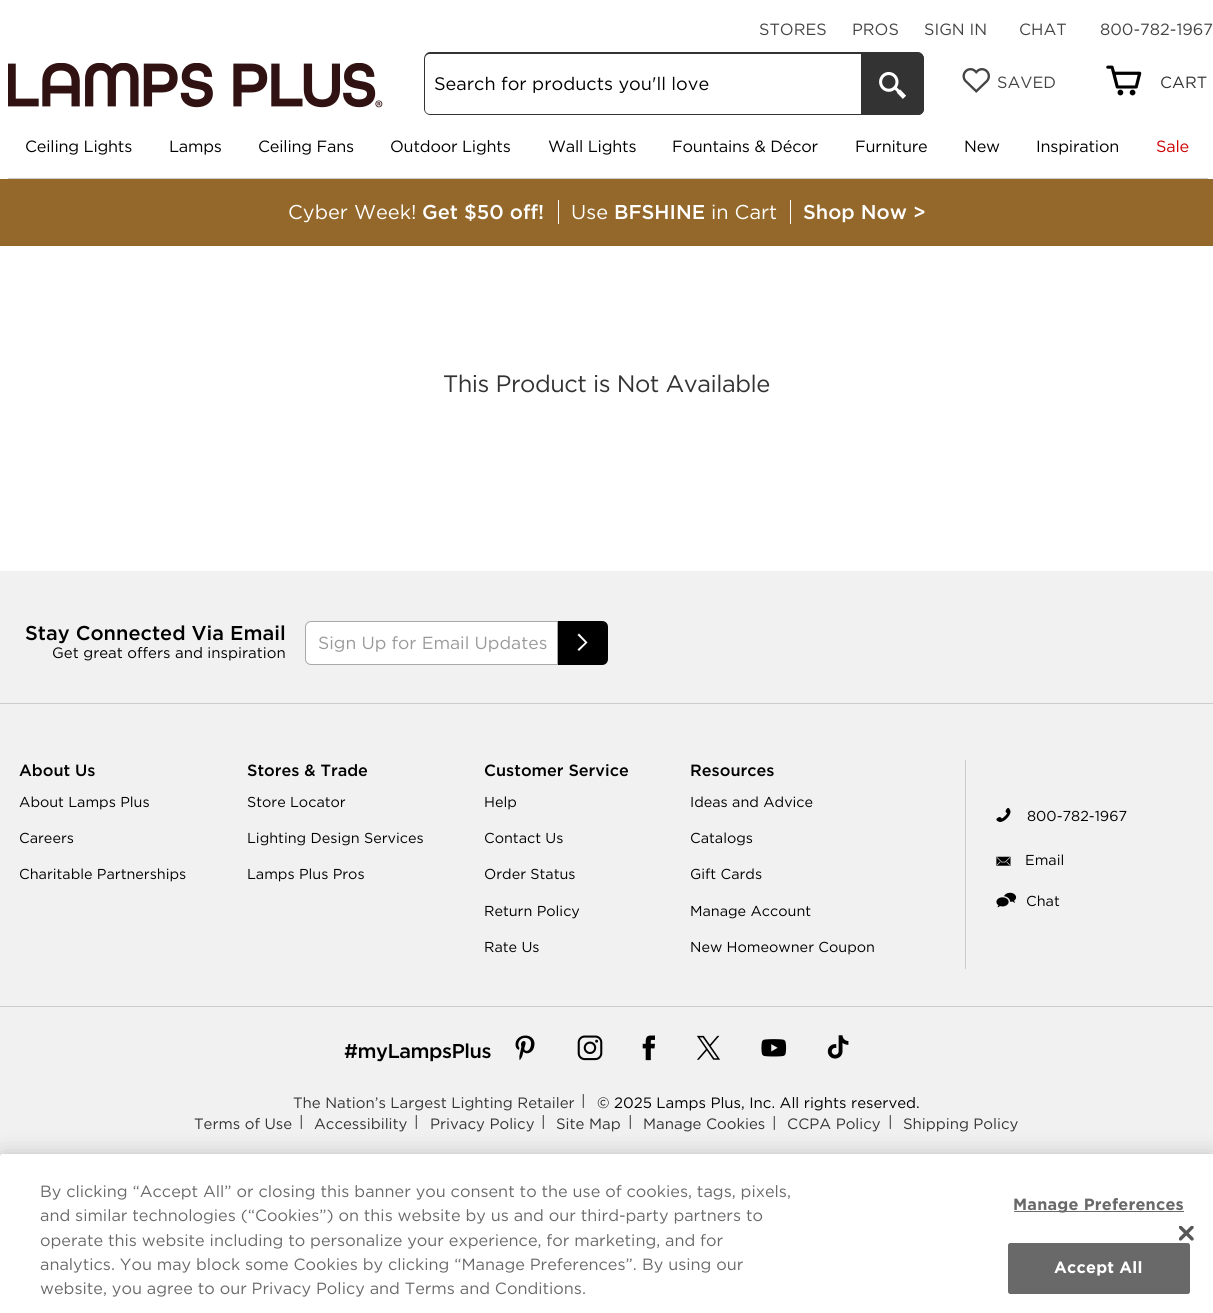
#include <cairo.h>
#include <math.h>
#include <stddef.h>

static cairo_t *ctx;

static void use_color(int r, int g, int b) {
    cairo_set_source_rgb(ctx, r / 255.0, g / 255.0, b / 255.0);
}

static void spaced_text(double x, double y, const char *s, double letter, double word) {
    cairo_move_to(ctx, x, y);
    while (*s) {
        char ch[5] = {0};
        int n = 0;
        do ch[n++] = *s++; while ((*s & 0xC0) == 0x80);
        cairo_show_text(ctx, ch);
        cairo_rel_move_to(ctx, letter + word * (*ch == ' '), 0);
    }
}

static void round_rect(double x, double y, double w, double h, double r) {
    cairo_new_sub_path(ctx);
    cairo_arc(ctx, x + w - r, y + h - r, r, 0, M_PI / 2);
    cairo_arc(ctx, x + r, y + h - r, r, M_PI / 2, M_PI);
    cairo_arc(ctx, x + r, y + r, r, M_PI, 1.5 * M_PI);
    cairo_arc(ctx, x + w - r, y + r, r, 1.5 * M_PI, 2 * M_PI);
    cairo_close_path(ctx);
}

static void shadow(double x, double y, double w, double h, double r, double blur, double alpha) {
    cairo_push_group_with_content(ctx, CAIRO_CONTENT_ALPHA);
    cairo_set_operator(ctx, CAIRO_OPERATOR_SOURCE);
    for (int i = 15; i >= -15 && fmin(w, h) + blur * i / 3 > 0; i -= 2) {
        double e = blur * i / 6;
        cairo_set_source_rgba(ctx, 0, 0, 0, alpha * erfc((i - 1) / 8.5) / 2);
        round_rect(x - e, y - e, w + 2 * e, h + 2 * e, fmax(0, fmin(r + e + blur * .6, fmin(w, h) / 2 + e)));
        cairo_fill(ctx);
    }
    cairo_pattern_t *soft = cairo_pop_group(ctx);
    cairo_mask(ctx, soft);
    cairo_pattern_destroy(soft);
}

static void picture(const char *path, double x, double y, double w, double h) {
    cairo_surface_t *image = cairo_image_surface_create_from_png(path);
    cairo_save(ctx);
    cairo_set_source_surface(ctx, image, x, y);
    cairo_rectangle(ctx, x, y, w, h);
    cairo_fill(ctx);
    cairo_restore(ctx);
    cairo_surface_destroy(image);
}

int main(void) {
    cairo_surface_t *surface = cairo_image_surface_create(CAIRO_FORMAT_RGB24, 1213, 1313);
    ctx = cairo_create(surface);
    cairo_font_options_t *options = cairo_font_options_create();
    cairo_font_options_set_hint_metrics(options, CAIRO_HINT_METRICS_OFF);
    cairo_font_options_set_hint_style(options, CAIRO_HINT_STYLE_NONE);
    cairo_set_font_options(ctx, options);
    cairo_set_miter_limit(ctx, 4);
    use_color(255, 255, 255);
    cairo_paint(ctx);
    cairo_select_font_face(ctx, "Gotham", CAIRO_FONT_SLANT_NORMAL, CAIRO_FONT_WEIGHT_NORMAL);
    cairo_set_font_size(ctx, 16.25);
    use_color(68, 68, 68);
    cairo_move_to(ctx, 759, 35);
    cairo_show_text(ctx, "STORES");
    cairo_move_to(ctx, 852, 35);
    cairo_show_text(ctx, "PROS");
    cairo_move_to(ctx, 924, 35);
    cairo_show_text(ctx, "SIGN IN");
    cairo_move_to(ctx, 1019, 35);
    cairo_show_text(ctx, "CHAT");
    cairo_move_to(ctx, 1100, 35);
    cairo_show_text(ctx, "800-782-1967");
    use_color(204, 204, 204);
    cairo_rectangle(ctx, 8, 178, 1200, 1);
    cairo_fill(ctx);
    picture("img1.png", 8, 63, 375, 45);
    use_color(51, 51, 51);
    cairo_set_fill_rule(ctx, CAIRO_FILL_RULE_EVEN_ODD);
    cairo_new_path(ctx);
    cairo_move_to(ctx, 430, 52);
    cairo_line_to(ctx, 861, 52);
    cairo_line_to(ctx, 861, 115);
    cairo_line_to(ctx, 430, 115);
    cairo_curve_to(ctx, 427, 115, 424, 112, 424, 109);
    cairo_line_to(ctx, 424, 59);
    cairo_curve_to(ctx, 424, 55, 427, 52, 430, 52);
    cairo_close_path(ctx);
    cairo_move_to(ctx, 430, 54);
    cairo_line_to(ctx, 861, 54);
    cairo_line_to(ctx, 861, 114);
    cairo_line_to(ctx, 430, 114);
    cairo_curve_to(ctx, 427, 114, 425, 112, 425, 109);
    cairo_line_to(ctx, 425, 59);
    cairo_curve_to(ctx, 425, 56, 427, 54, 430, 54);
    cairo_close_path(ctx);
    cairo_fill(ctx);
    cairo_set_font_size(ctx, 18.1);
    use_color(0, 0, 0);
    cairo_move_to(ctx, 434, 90);
    cairo_show_text(ctx, "Search for products you'll love");
    use_color(51, 51, 51);
    cairo_new_path(ctx);
    cairo_move_to(ctx, 861, 53);
    cairo_line_to(ctx, 918, 53);
    cairo_curve_to(ctx, 921.5, 53, 924, 55.5, 924, 59);
    cairo_line_to(ctx, 924, 109);
    cairo_curve_to(ctx, 924, 112.5, 921.5, 115, 918, 115);
    cairo_line_to(ctx, 861, 115);
    cairo_close_path(ctx);
    cairo_fill(ctx);
    cairo_new_path(ctx);
    cairo_move_to(ctx, 861, 52);
    cairo_line_to(ctx, 918, 52);
    cairo_curve_to(ctx, 921, 52, 924, 55, 924, 59);
    cairo_line_to(ctx, 924, 109);
    cairo_curve_to(ctx, 924, 112, 921, 115, 918, 115);
    cairo_line_to(ctx, 861, 115);
    cairo_close_path(ctx);
    cairo_move_to(ctx, 861, 54);
    cairo_line_to(ctx, 918, 54);
    cairo_curve_to(ctx, 920, 54, 922, 56, 922, 59);
    cairo_line_to(ctx, 922, 109);
    cairo_curve_to(ctx, 922, 112, 920, 114, 918, 114);
    cairo_line_to(ctx, 861, 114);
    cairo_close_path(ctx);
    cairo_fill(ctx);
    picture("img2.png", 879, 71, 27, 28);
    picture("img3.png", 962, 68, 28, 25);
    cairo_set_font_size(ctx, 16.25);
    use_color(68, 68, 68);
    cairo_move_to(ctx, 997, 88);
    cairo_show_text(ctx, "SAVED");
    picture("img4.png", 1106, 65, 36, 31);
    use_color(51, 51, 51);
    cairo_move_to(ctx, 1160, 88);
    cairo_show_text(ctx, "CART");
    use_color(0, 0, 0);
    spaced_text(25, 152, "Ceiling Lights", -0.2, 0);
    spaced_text(169, 152, "Lamps", -0.2, 0);
    spaced_text(258, 152, "Ceiling Fans", -0.2, 0);
    spaced_text(390, 152, "Outdoor Lights", -0.2, 0);
    spaced_text(548, 152, "Wall Lights", -0.2, 0);
    spaced_text(672, 152, "Fountains & Décor", -0.2, 0);
    spaced_text(855, 152, "Furniture", -0.2, 0);
    spaced_text(964, 152, "New", -0.2, 0);
    spaced_text(1036, 152, "Inspiration", -0.2, 0);
    use_color(204, 0, 0);
    spaced_text(1156, 152, "Sale", -0.2, 0);
    use_color(148, 104, 42);
    cairo_rectangle(ctx, 0, 179, 1213, 67);
    cairo_fill(ctx);
    use_color(255, 255, 255);
    cairo_rectangle(ctx, 558, 200, 1, 24);
    cairo_fill(ctx);
    cairo_set_font_size(ctx, 20);
    cairo_move_to(ctx, 288, 219);
    cairo_show_text(ctx, "Cyber Week!");
    cairo_select_font_face(ctx, "Gotham Medium", CAIRO_FONT_SLANT_NORMAL, CAIRO_FONT_WEIGHT_NORMAL);
    cairo_move_to(ctx, 422, 219);
    cairo_show_text(ctx, "Get $50 off!");
    cairo_rectangle(ctx, 790, 200, 1, 24);
    cairo_fill(ctx);
    cairo_select_font_face(ctx, "Gotham", CAIRO_FONT_SLANT_NORMAL, CAIRO_FONT_WEIGHT_NORMAL);
    cairo_move_to(ctx, 571, 219);
    cairo_show_text(ctx, "Use");
    cairo_select_font_face(ctx, "Gotham Medium", CAIRO_FONT_SLANT_NORMAL, CAIRO_FONT_WEIGHT_NORMAL);
    cairo_move_to(ctx, 614, 219);
    cairo_show_text(ctx, "BFSHINE");
    cairo_select_font_face(ctx, "Gotham", CAIRO_FONT_SLANT_NORMAL, CAIRO_FONT_WEIGHT_NORMAL);
    cairo_move_to(ctx, 711, 219);
    cairo_show_text(ctx, "in Cart");
    cairo_select_font_face(ctx, "Gotham Medium", CAIRO_FONT_SLANT_NORMAL, CAIRO_FONT_WEIGHT_NORMAL);
    cairo_move_to(ctx, 803, 219);
    cairo_show_text(ctx, "Shop Now >");
    cairo_select_font_face(ctx, "Gotham", CAIRO_FONT_SLANT_NORMAL, CAIRO_FONT_WEIGHT_NORMAL);
    cairo_set_font_size(ctx, 23.75);
    use_color(51, 51, 51);
    spaced_text(443, 392, "This Product is Not Available", -0.5, 0);
    use_color(241, 241, 241);
    cairo_rectangle(ctx, 0, 571, 1213, 586);
    cairo_fill(ctx);
    use_color(204, 204, 204);
    cairo_rectangle(ctx, 0, 703, 1213, 1);
    cairo_fill(ctx);
    cairo_select_font_face(ctx, "Gotham Medium", CAIRO_FONT_SLANT_NORMAL, CAIRO_FONT_WEIGHT_NORMAL);
    cairo_set_font_size(ctx, 20);
    use_color(0, 0, 0);
    cairo_move_to(ctx, 25, 640);
    cairo_show_text(ctx, "Stay Connected Via Email");
    cairo_select_font_face(ctx, "Gotham", CAIRO_FONT_SLANT_NORMAL, CAIRO_FONT_WEIGHT_NORMAL);
    cairo_set_font_size(ctx, 15);
    cairo_move_to(ctx, 52, 658);
    cairo_show_text(ctx, "Get great offers and inspiration");
    use_color(255, 255, 255);
    cairo_new_path(ctx);
    cairo_move_to(ctx, 311, 621.5);
    cairo_line_to(ctx, 557.5, 621.5);
    cairo_line_to(ctx, 557.5, 664.5);
    cairo_line_to(ctx, 311, 664.5);
    cairo_curve_to(ctx, 308, 664.5, 305.5, 662, 305.5, 659);
    cairo_line_to(ctx, 305.5, 627);
    cairo_curve_to(ctx, 305.5, 624, 308, 621.5, 311, 621.5);
    cairo_close_path(ctx);
    cairo_fill_preserve(ctx);
    use_color(169, 169, 169);
    cairo_set_line_width(ctx, 1);
    cairo_stroke(ctx);
    cairo_set_font_size(ctx, 17.5);
    use_color(153, 153, 153);
    cairo_move_to(ctx, 318, 649);
    cairo_show_text(ctx, "Sign Up for Email Updates");
    use_color(0, 0, 0);
    cairo_new_path(ctx);
    cairo_move_to(ctx, 558, 621);
    cairo_line_to(ctx, 602, 621);
    cairo_curve_to(ctx, 605.5, 621, 608, 623.5, 608, 627);
    cairo_line_to(ctx, 608, 659);
    cairo_curve_to(ctx, 608, 662.5, 605.5, 665, 602, 665);
    cairo_line_to(ctx, 558, 665);
    cairo_close_path(ctx);
    cairo_fill(ctx);
    use_color(255, 255, 255);
    cairo_set_fill_rule(ctx, CAIRO_FILL_RULE_WINDING);
    cairo_new_path(ctx);
    cairo_move_to(ctx, 579, 633.5);
    cairo_line_to(ctx, 577.5, 635);
    cairo_line_to(ctx, 585, 642.5);
    cairo_line_to(ctx, 577.5, 649.5);
    cairo_line_to(ctx, 579, 651);
    cairo_line_to(ctx, 587.5, 642.5);
    cairo_close_path(ctx);
    cairo_fill(ctx);
    cairo_select_font_face(ctx, "Gotham Medium", CAIRO_FONT_SLANT_NORMAL, CAIRO_FONT_WEIGHT_NORMAL);
    cairo_set_font_size(ctx, 16.25);
    use_color(0, 0, 0);
    cairo_move_to(ctx, 19, 776);
    cairo_show_text(ctx, "About Us");
    cairo_select_font_face(ctx, "Gotham", CAIRO_FONT_SLANT_NORMAL, CAIRO_FONT_WEIGHT_NORMAL);
    cairo_set_font_size(ctx, 14.4);
    cairo_move_to(ctx, 19, 807);
    cairo_show_text(ctx, "About Lamps Plus");
    cairo_move_to(ctx, 19, 843);
    cairo_show_text(ctx, "Careers");
    cairo_move_to(ctx, 19, 879);
    cairo_show_text(ctx, "Charitable Partnerships");
    cairo_select_font_face(ctx, "Gotham Medium", CAIRO_FONT_SLANT_NORMAL, CAIRO_FONT_WEIGHT_NORMAL);
    cairo_set_font_size(ctx, 16.25);
    cairo_move_to(ctx, 247, 776);
    cairo_show_text(ctx, "Stores & Trade");
    cairo_select_font_face(ctx, "Gotham", CAIRO_FONT_SLANT_NORMAL, CAIRO_FONT_WEIGHT_NORMAL);
    cairo_set_font_size(ctx, 14.4);
    cairo_move_to(ctx, 247, 807);
    cairo_show_text(ctx, "Store Locator");
    cairo_move_to(ctx, 247, 843);
    cairo_show_text(ctx, "Lighting Design Services");
    cairo_move_to(ctx, 247, 879);
    cairo_show_text(ctx, "Lamps Plus Pros");
    cairo_select_font_face(ctx, "Gotham Medium", CAIRO_FONT_SLANT_NORMAL, CAIRO_FONT_WEIGHT_NORMAL);
    cairo_set_font_size(ctx, 16.25);
    cairo_move_to(ctx, 484, 776);
    cairo_show_text(ctx, "Customer Service");
    cairo_select_font_face(ctx, "Gotham", CAIRO_FONT_SLANT_NORMAL, CAIRO_FONT_WEIGHT_NORMAL);
    cairo_set_font_size(ctx, 14.4);
    cairo_move_to(ctx, 484, 807);
    cairo_show_text(ctx, "Help");
    cairo_move_to(ctx, 484, 843);
    cairo_show_text(ctx, "Contact Us");
    cairo_move_to(ctx, 484, 879);
    cairo_show_text(ctx, "Order Status");
    cairo_move_to(ctx, 484, 916);
    cairo_show_text(ctx, "Return Policy");
    cairo_move_to(ctx, 484, 952);
    cairo_show_text(ctx, "Rate Us");
    cairo_select_font_face(ctx, "Gotham Medium", CAIRO_FONT_SLANT_NORMAL, CAIRO_FONT_WEIGHT_NORMAL);
    cairo_set_font_size(ctx, 16.25);
    cairo_move_to(ctx, 690, 776);
    cairo_show_text(ctx, "Resources");
    cairo_select_font_face(ctx, "Gotham", CAIRO_FONT_SLANT_NORMAL, CAIRO_FONT_WEIGHT_NORMAL);
    cairo_set_font_size(ctx, 14.4);
    cairo_move_to(ctx, 690, 807);
    cairo_show_text(ctx, "Ideas and Advice");
    cairo_move_to(ctx, 690, 843);
    cairo_show_text(ctx, "Catalogs");
    cairo_move_to(ctx, 690, 879);
    cairo_show_text(ctx, "Gift Cards");
    cairo_move_to(ctx, 690, 916);
    cairo_show_text(ctx, "Manage Account");
    cairo_move_to(ctx, 690, 952);
    cairo_show_text(ctx, "New Homeowner Coupon");
    use_color(204, 204, 204);
    cairo_rectangle(ctx, 965, 760, 1, 209);
    cairo_fill(ctx);
    picture("img5.png", 996, 807, 15, 15);
    use_color(0, 0, 0);
    cairo_move_to(ctx, 1027, 821);
    cairo_show_text(ctx, "800-782-1967");
    picture("img6.png", 996, 856, 15, 10);
    cairo_move_to(ctx, 1025, 865);
    cairo_show_text(ctx, "Email");
    picture("img7.png", 996, 892, 21, 16);
    cairo_move_to(ctx, 1026, 906);
    cairo_show_text(ctx, "Chat");
    use_color(204, 204, 204);
    cairo_rectangle(ctx, 0, 1006, 1213, 1);
    cairo_fill(ctx);
    cairo_select_font_face(ctx, "Gotham Medium", CAIRO_FONT_SLANT_NORMAL, CAIRO_FONT_WEIGHT_NORMAL);
    cairo_set_font_size(ctx, 20);
    use_color(0, 0, 0);
    spaced_text(344, 1058, "#myLampsPlus", -0.5, 0);
    picture("img8.png", 515, 1035, 20, 26);
    picture("img9.png", 577, 1035, 26, 26);
    picture("img10.png", 642, 1035, 13, 26);
    picture("img11.png", 697, 1035, 23, 25);
    picture("img12.png", 761, 1039, 26, 18);
    picture("img13.png", 827, 1035, 22, 24);
    cairo_select_font_face(ctx, "Gotham", CAIRO_FONT_SLANT_NORMAL, CAIRO_FONT_WEIGHT_NORMAL);
    cairo_set_font_size(ctx, 15);
    use_color(51, 51, 51);
    cairo_move_to(ctx, 293, 1108);
    cairo_show_text(ctx, "The Nation’s Largest Lighting Retailer");
    cairo_move_to(ctx, 581, 1106);
    cairo_show_text(ctx, "|");
    use_color(0, 0, 0);
    cairo_move_to(ctx, 597, 1108);
    cairo_show_text(ctx, "© 2025 Lamps Plus, Inc. All rights reserved.");
    use_color(51, 51, 51);
    cairo_move_to(ctx, 194, 1129);
    cairo_show_text(ctx, "Terms of Use");
    cairo_move_to(ctx, 299, 1127);
    cairo_show_text(ctx, "|");
    cairo_move_to(ctx, 314, 1129);
    cairo_show_text(ctx, "Accessibility");
    cairo_move_to(ctx, 414, 1127);
    cairo_show_text(ctx, "|");
    cairo_move_to(ctx, 430, 1129);
    cairo_show_text(ctx, "Privacy Policy");
    cairo_move_to(ctx, 541, 1127);
    cairo_show_text(ctx, "|");
    cairo_move_to(ctx, 556, 1129);
    cairo_show_text(ctx, "Site Map");
    cairo_move_to(ctx, 628, 1127);
    cairo_show_text(ctx, "|");
    cairo_move_to(ctx, 643, 1129);
    cairo_show_text(ctx, "Manage Cookies");
    cairo_move_to(ctx, 772, 1128);
    cairo_show_text(ctx, "|");
    cairo_move_to(ctx, 787, 1129);
    cairo_show_text(ctx, "CCPA Policy");
    cairo_move_to(ctx, 888, 1127);
    cairo_show_text(ctx, "|");
    cairo_move_to(ctx, 903, 1129);
    cairo_show_text(ctx, "Shipping Policy");
    use_color(0, 0, 0);
    shadow(0, 1154, 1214, 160, 2.5, 11, 0.2);
    use_color(255, 255, 255);
    round_rect(0, 1154, 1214, 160, 2.5);
    cairo_fill(ctx);
    cairo_set_font_size(ctx, 16.25);
    use_color(105, 105, 105);
    cairo_move_to(ctx, 40, 1197);
    cairo_show_text(ctx, "By clicking “Accept All” or closing this banner you consent to the use of cookies, tags, pixels,");
    cairo_move_to(ctx, 40, 1221);
    cairo_show_text(ctx, "and similar technologies (“Cookies”) on this website by us and our third-party partners to");
    cairo_move_to(ctx, 40, 1246);
    cairo_show_text(ctx, "operate this website including to personalize your experience, for marketing, and for");
    cairo_move_to(ctx, 40, 1270);
    cairo_show_text(ctx, "analytics. You may block some Cookies by clicking “Manage Preferences”.");
    cairo_move_to(ctx, 642, 1270);
    cairo_show_text(ctx, "By using our");
    cairo_move_to(ctx, 40, 1294);
    cairo_show_text(ctx, "website, you agree to our Privacy Policy and Terms and Conditions.");
    cairo_rectangle(ctx, 1014, 1211, 170, 1);
    cairo_fill(ctx);
    cairo_select_font_face(ctx, "Gotham", CAIRO_FONT_SLANT_NORMAL, CAIRO_FONT_WEIGHT_BOLD);
    spaced_text(1013, 1210, "Manage Preferences", 0.2, 0);
    round_rect(1008.5, 1243.5, 181, 50, 2);
    cairo_fill_preserve(ctx);
    cairo_stroke(ctx);
    use_color(255, 255, 255);
    spaced_text(1054, 1273, "Accept All", 0.2, 0);
    picture("img14.png", 1179, 1226, 15, 15);
    cairo_surface_write_to_png(surface, "result.png");
    cairo_font_options_destroy(options);
    cairo_destroy(ctx);
    cairo_surface_destroy(surface);
    return 0;
}
